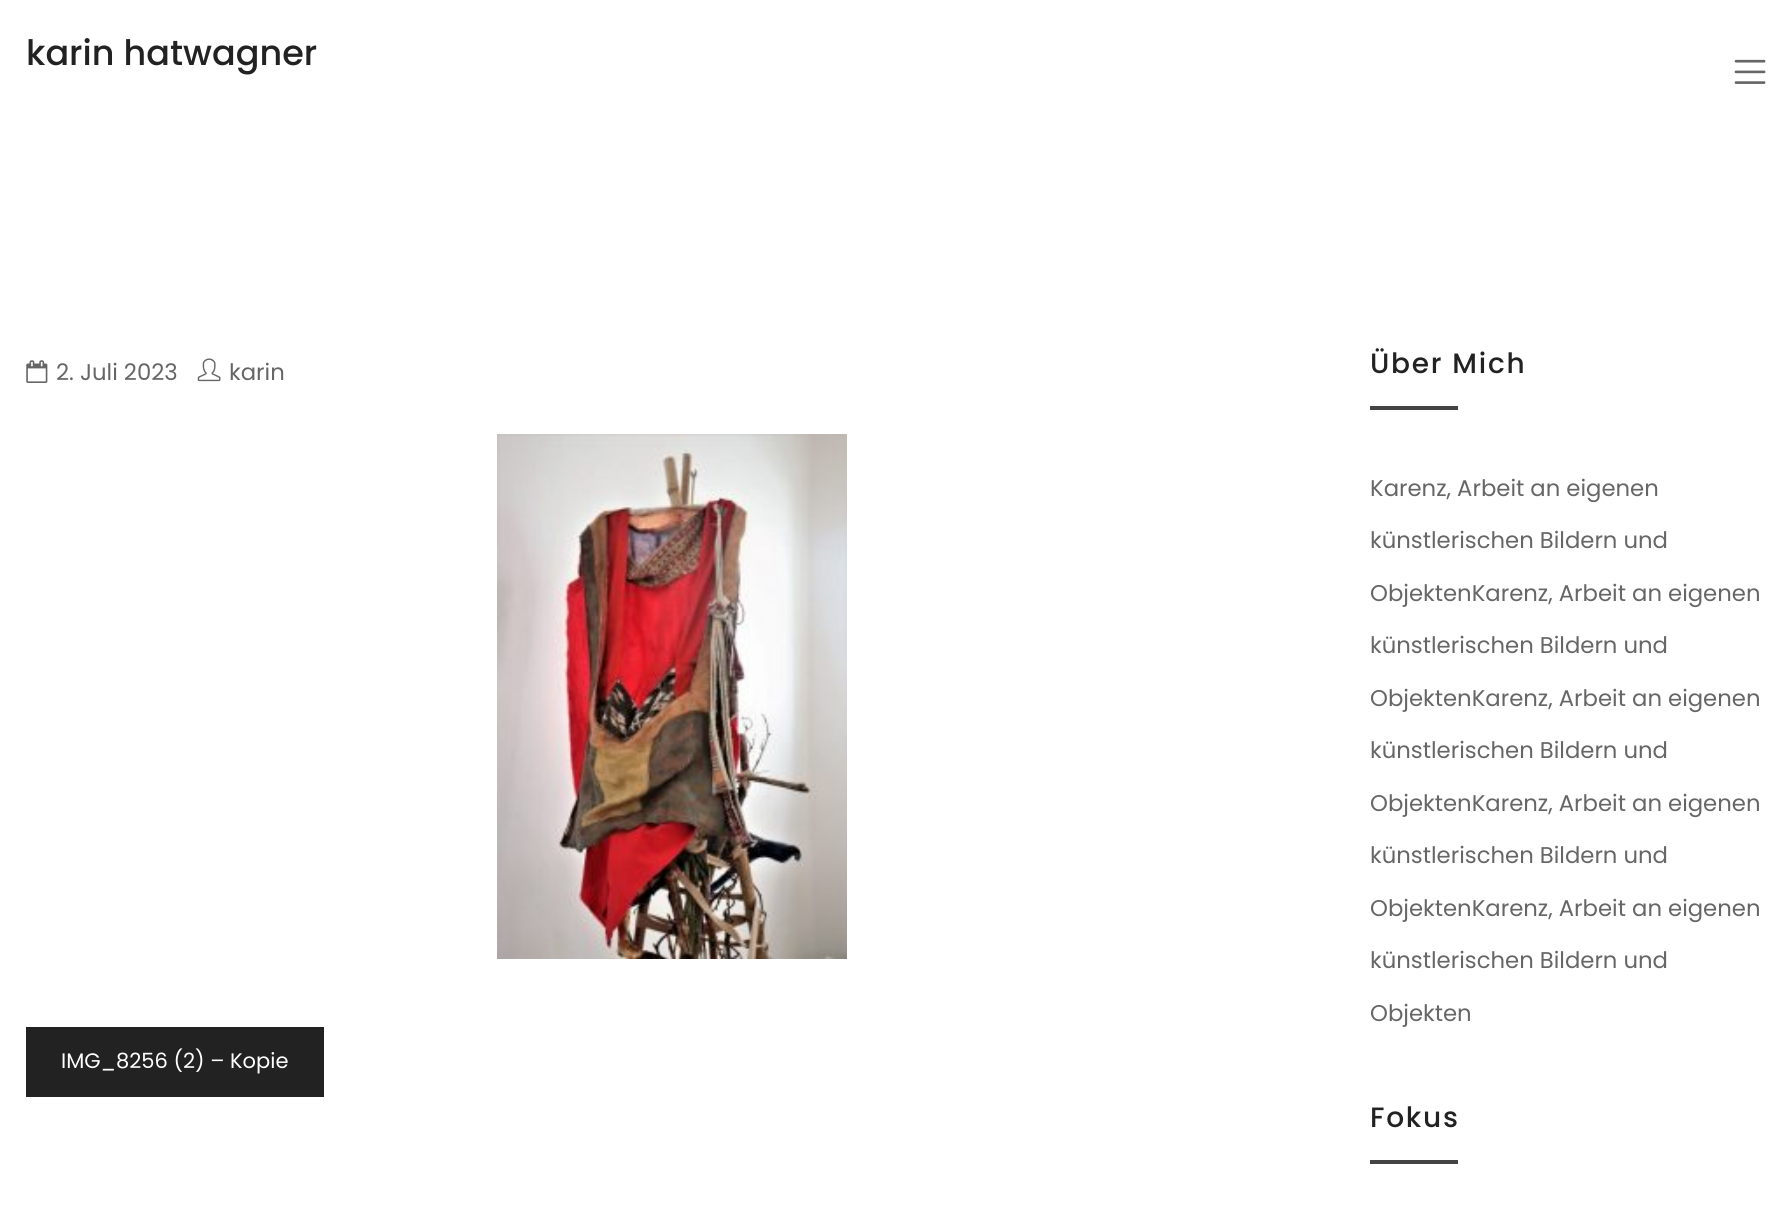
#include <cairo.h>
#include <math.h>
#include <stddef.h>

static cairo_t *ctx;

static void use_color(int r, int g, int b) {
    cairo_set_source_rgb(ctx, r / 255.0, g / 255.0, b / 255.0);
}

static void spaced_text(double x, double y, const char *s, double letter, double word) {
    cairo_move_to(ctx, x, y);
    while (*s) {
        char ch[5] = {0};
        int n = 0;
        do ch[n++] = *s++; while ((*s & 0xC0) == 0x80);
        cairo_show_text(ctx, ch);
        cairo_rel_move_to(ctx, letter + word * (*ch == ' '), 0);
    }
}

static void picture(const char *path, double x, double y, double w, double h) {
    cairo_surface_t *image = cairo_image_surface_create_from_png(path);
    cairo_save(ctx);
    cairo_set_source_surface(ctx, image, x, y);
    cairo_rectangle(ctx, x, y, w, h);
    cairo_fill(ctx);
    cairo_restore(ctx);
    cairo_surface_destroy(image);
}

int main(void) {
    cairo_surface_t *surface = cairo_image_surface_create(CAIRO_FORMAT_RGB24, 1791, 1210);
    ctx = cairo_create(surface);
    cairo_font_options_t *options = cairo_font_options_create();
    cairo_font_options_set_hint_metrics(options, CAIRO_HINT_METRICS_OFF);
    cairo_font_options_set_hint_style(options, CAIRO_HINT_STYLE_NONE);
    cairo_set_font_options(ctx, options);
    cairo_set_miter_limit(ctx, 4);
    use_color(255, 255, 255);
    cairo_paint(ctx);
    cairo_select_font_face(ctx, "Poppins Medium", CAIRO_FONT_SLANT_NORMAL, CAIRO_FONT_WEIGHT_NORMAL);
    cairo_set_font_size(ctx, 35);
    use_color(34, 34, 34);
    cairo_move_to(ctx, 26, 65);
    cairo_show_text(ctx, "karin hatwagner");
    picture("img1.png", 1734, 59, 32, 25);
    picture("img2.png", 26, 360, 22, 23);
    cairo_select_font_face(ctx, "Poppins", CAIRO_FONT_SLANT_NORMAL, CAIRO_FONT_WEIGHT_NORMAL);
    cairo_set_font_size(ctx, 22.75);
    use_color(102, 102, 102);
    cairo_move_to(ctx, 56, 380);
    cairo_show_text(ctx, "2. Juli 2023");
    picture("img3.png", 197, 358, 24, 24);
    cairo_move_to(ctx, 229, 380);
    cairo_show_text(ctx, "karin");
    picture("img4.png", 497, 434, 350, 525);
    use_color(34, 34, 34);
    cairo_rectangle(ctx, 26, 1027, 298, 70);
    cairo_fill(ctx);
    cairo_set_font_size(ctx, 21);
    use_color(255, 255, 255);
    cairo_move_to(ctx, 61, 1068);
    cairo_show_text(ctx, "IMG_8256 (2) – Kopie");
    cairo_select_font_face(ctx, "Poppins Medium", CAIRO_FONT_SLANT_NORMAL, CAIRO_FONT_WEIGHT_NORMAL);
    cairo_set_font_size(ctx, 28);
    use_color(34, 34, 34);
    spaced_text(1370, 373, "Über Mich", 1.75, 0);
    use_color(68, 68, 68);
    cairo_rectangle(ctx, 1370, 406, 88, 4);
    cairo_fill(ctx);
    cairo_select_font_face(ctx, "Poppins", CAIRO_FONT_SLANT_NORMAL, CAIRO_FONT_WEIGHT_NORMAL);
    cairo_set_font_size(ctx, 22.75);
    use_color(102, 102, 102);
    cairo_move_to(ctx, 1370, 496);
    cairo_show_text(ctx, "Karenz, Arbeit an eigenen");
    cairo_move_to(ctx, 1370, 548);
    cairo_show_text(ctx, "künstlerischen Bildern und");
    cairo_move_to(ctx, 1370, 601);
    cairo_show_text(ctx, "ObjektenKarenz, Arbeit an eigenen");
    cairo_move_to(ctx, 1370, 653);
    cairo_show_text(ctx, "künstlerischen Bildern und");
    cairo_move_to(ctx, 1370, 706);
    cairo_show_text(ctx, "ObjektenKarenz, Arbeit an eigenen");
    cairo_move_to(ctx, 1370, 758);
    cairo_show_text(ctx, "künstlerischen Bildern und");
    cairo_move_to(ctx, 1370, 811);
    cairo_show_text(ctx, "ObjektenKarenz, Arbeit an eigenen");
    cairo_move_to(ctx, 1370, 863);
    cairo_show_text(ctx, "künstlerischen Bildern und");
    cairo_move_to(ctx, 1370, 916);
    cairo_show_text(ctx, "ObjektenKarenz, Arbeit an eigenen");
    cairo_move_to(ctx, 1370, 968);
    cairo_show_text(ctx, "künstlerischen Bildern und");
    cairo_move_to(ctx, 1370, 1021);
    cairo_show_text(ctx, "Objekten");
    cairo_select_font_face(ctx, "Poppins Medium", CAIRO_FONT_SLANT_NORMAL, CAIRO_FONT_WEIGHT_NORMAL);
    cairo_set_font_size(ctx, 28);
    use_color(34, 34, 34);
    spaced_text(1370, 1127, "Fokus", 1.75, 0);
    use_color(68, 68, 68);
    cairo_rectangle(ctx, 1370, 1160, 88, 4);
    cairo_fill(ctx);
    cairo_surface_write_to_png(surface, "result.png");
    cairo_font_options_destroy(options);
    cairo_destroy(ctx);
    cairo_surface_destroy(surface);
    return 0;
}
